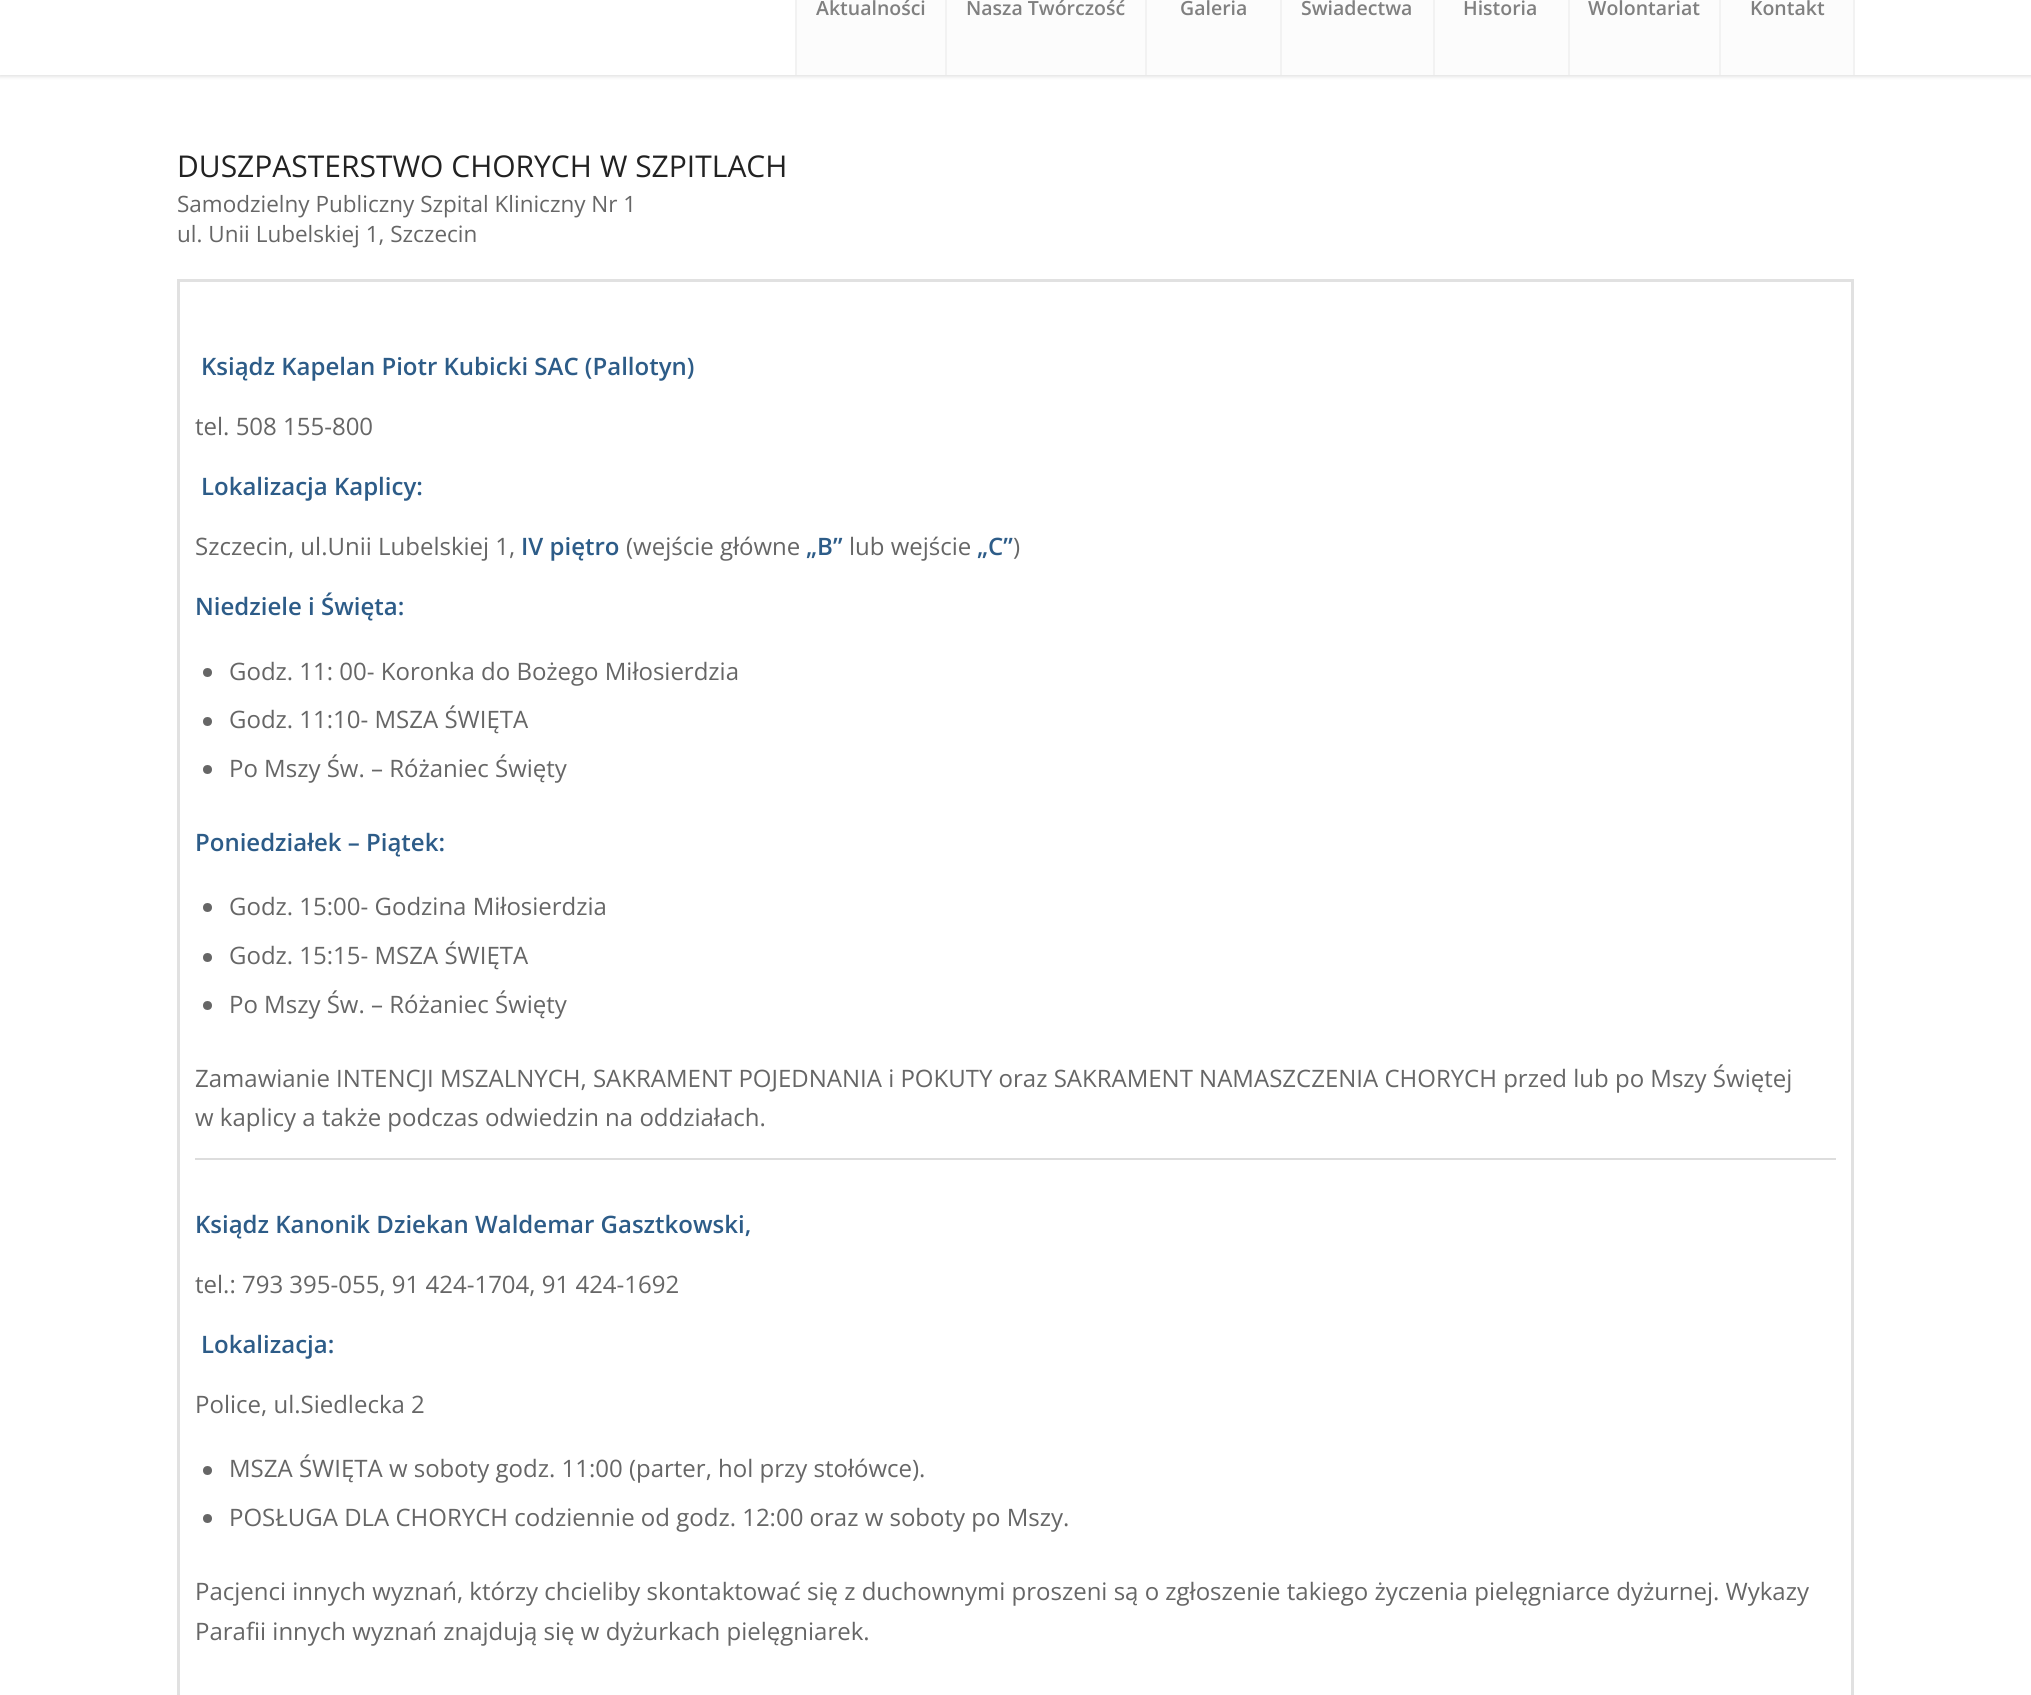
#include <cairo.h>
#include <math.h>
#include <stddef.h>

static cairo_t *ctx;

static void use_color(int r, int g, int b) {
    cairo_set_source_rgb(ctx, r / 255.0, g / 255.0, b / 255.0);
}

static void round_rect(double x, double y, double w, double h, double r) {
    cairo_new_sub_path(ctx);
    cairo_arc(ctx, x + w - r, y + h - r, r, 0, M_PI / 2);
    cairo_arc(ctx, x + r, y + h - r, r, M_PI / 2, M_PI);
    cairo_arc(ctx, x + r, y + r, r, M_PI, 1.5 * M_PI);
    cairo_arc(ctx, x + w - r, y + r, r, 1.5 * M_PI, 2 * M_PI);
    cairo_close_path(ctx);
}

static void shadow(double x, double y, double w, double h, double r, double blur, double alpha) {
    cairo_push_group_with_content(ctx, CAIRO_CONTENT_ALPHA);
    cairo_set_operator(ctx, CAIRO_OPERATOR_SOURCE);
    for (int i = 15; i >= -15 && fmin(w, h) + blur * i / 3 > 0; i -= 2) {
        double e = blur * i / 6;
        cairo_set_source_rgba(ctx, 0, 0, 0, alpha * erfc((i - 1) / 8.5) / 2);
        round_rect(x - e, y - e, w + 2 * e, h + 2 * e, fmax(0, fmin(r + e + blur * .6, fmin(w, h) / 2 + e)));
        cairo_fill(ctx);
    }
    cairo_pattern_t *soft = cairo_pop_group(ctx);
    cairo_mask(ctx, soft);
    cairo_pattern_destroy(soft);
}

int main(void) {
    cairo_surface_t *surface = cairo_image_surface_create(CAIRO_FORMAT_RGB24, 2031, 1695);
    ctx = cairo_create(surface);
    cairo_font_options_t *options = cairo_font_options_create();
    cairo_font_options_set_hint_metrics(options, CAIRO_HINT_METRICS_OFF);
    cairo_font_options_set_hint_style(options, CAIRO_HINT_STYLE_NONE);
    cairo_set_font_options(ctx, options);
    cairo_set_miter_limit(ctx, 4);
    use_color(255, 255, 255);
    cairo_paint(ctx);
    use_color(0, 0, 0);
    shadow(-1, -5, 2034, 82, 0, 1.5, 0.1);
    use_color(255, 255, 255);
    cairo_rectangle(ctx, 0, 0, 2031, 75);
    cairo_fill(ctx);
    use_color(252, 252, 252);
    cairo_rectangle(ctx, 797, 0, 148, 75);
    cairo_fill(ctx);
    use_color(242, 242, 242);
    cairo_rectangle(ctx, 795, 0, 2, 75);
    cairo_fill(ctx);
    cairo_select_font_face(ctx, "Open Sans SemiBold", CAIRO_FONT_SLANT_NORMAL, CAIRO_FONT_WEIGHT_NORMAL);
    cairo_set_font_size(ctx, 19.5);
    use_color(128, 128, 128);
    cairo_move_to(ctx, 816, 15);
    cairo_show_text(ctx, "Aktualności");
    use_color(252, 252, 252);
    cairo_rectangle(ctx, 947, 0, 198, 75);
    cairo_fill(ctx);
    use_color(242, 242, 242);
    cairo_rectangle(ctx, 945, 0, 2, 75);
    cairo_fill(ctx);
    use_color(128, 128, 128);
    cairo_move_to(ctx, 966, 15);
    cairo_show_text(ctx, "Nasza Twórczość");
    use_color(252, 252, 252);
    cairo_rectangle(ctx, 1147, 0, 133, 75);
    cairo_fill(ctx);
    use_color(242, 242, 242);
    cairo_rectangle(ctx, 1145, 0, 2, 75);
    cairo_fill(ctx);
    use_color(128, 128, 128);
    cairo_move_to(ctx, 1180, 15);
    cairo_show_text(ctx, "Galeria");
    use_color(252, 252, 252);
    cairo_rectangle(ctx, 1282, 0, 151, 75);
    cairo_fill(ctx);
    use_color(242, 242, 242);
    cairo_rectangle(ctx, 1280, 0, 2, 75);
    cairo_fill(ctx);
    use_color(128, 128, 128);
    cairo_move_to(ctx, 1301, 15);
    cairo_show_text(ctx, "Świadectwa");
    use_color(252, 252, 252);
    cairo_rectangle(ctx, 1435, 0, 133, 75);
    cairo_fill(ctx);
    use_color(242, 242, 242);
    cairo_rectangle(ctx, 1433, 0, 2, 75);
    cairo_fill(ctx);
    use_color(128, 128, 128);
    cairo_move_to(ctx, 1463, 15);
    cairo_show_text(ctx, "Historia");
    use_color(252, 252, 252);
    cairo_rectangle(ctx, 1570, 0, 149, 75);
    cairo_fill(ctx);
    use_color(242, 242, 242);
    cairo_rectangle(ctx, 1568, 0, 2, 75);
    cairo_fill(ctx);
    use_color(128, 128, 128);
    cairo_move_to(ctx, 1588, 15);
    cairo_show_text(ctx, "Wolontariat");
    use_color(252, 252, 252);
    cairo_rectangle(ctx, 1721, 0, 132, 75);
    cairo_fill(ctx);
    use_color(242, 242, 242);
    cairo_rectangle(ctx, 1853, 0, 2, 75);
    cairo_fill(ctx);
    cairo_rectangle(ctx, 1719, 0, 2, 75);
    cairo_fill(ctx);
    use_color(128, 128, 128);
    cairo_move_to(ctx, 1750, 15);
    cairo_show_text(ctx, "Kontakt");
    cairo_select_font_face(ctx, "Open Sans", CAIRO_FONT_SLANT_NORMAL, CAIRO_FONT_WEIGHT_NORMAL);
    cairo_set_font_size(ctx, 30);
    use_color(34, 34, 34);
    cairo_move_to(ctx, 177, 177);
    cairo_show_text(ctx, "DUSZPASTERSTWO CHORYCH W SZPITLACH");
    cairo_set_font_size(ctx, 22.5);
    use_color(102, 102, 102);
    cairo_move_to(ctx, 177, 212);
    cairo_show_text(ctx, "Samodzielny Publiczny Szpital Kliniczny Nr 1");
    cairo_move_to(ctx, 177, 242);
    cairo_show_text(ctx, "ul. Unii Lubelskiej 1, Szczecin");
    cairo_rectangle(ctx, 178.5, 280.5, 1674, 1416);
    use_color(225, 225, 225);
    cairo_set_line_width(ctx, 3);
    cairo_stroke(ctx);
    cairo_select_font_face(ctx, "Open Sans SemiBold", CAIRO_FONT_SLANT_NORMAL, CAIRO_FONT_WEIGHT_NORMAL);
    cairo_set_font_size(ctx, 24);
    use_color(45, 92, 136);
    cairo_move_to(ctx, 201, 375);
    cairo_show_text(ctx, "Ksiądz Kapelan Piotr Kubicki SAC (Pallotyn)");
    cairo_select_font_face(ctx, "Open Sans", CAIRO_FONT_SLANT_NORMAL, CAIRO_FONT_WEIGHT_NORMAL);
    use_color(102, 102, 102);
    cairo_move_to(ctx, 195, 435);
    cairo_show_text(ctx, "tel. 508 155-800");
    cairo_select_font_face(ctx, "Open Sans SemiBold", CAIRO_FONT_SLANT_NORMAL, CAIRO_FONT_WEIGHT_NORMAL);
    use_color(45, 92, 136);
    cairo_move_to(ctx, 201, 495);
    cairo_show_text(ctx, "Lokalizacja Kaplicy:");
    cairo_select_font_face(ctx, "Open Sans", CAIRO_FONT_SLANT_NORMAL, CAIRO_FONT_WEIGHT_NORMAL);
    use_color(102, 102, 102);
    cairo_move_to(ctx, 195, 555);
    cairo_show_text(ctx, "Szczecin, ul.Unii Lubelskiej 1,");
    cairo_select_font_face(ctx, "Open Sans SemiBold", CAIRO_FONT_SLANT_NORMAL, CAIRO_FONT_WEIGHT_NORMAL);
    use_color(45, 92, 136);
    cairo_move_to(ctx, 521, 555);
    cairo_show_text(ctx, "IV piętro");
    cairo_select_font_face(ctx, "Open Sans", CAIRO_FONT_SLANT_NORMAL, CAIRO_FONT_WEIGHT_NORMAL);
    use_color(102, 102, 102);
    cairo_move_to(ctx, 626, 555);
    cairo_show_text(ctx, "(wejście główne");
    cairo_select_font_face(ctx, "Open Sans SemiBold", CAIRO_FONT_SLANT_NORMAL, CAIRO_FONT_WEIGHT_NORMAL);
    use_color(45, 92, 136);
    cairo_move_to(ctx, 806, 555);
    cairo_show_text(ctx, "„B”");
    cairo_select_font_face(ctx, "Open Sans", CAIRO_FONT_SLANT_NORMAL, CAIRO_FONT_WEIGHT_NORMAL);
    use_color(102, 102, 102);
    cairo_move_to(ctx, 849, 555);
    cairo_show_text(ctx, "lub wejście");
    cairo_select_font_face(ctx, "Open Sans SemiBold", CAIRO_FONT_SLANT_NORMAL, CAIRO_FONT_WEIGHT_NORMAL);
    use_color(45, 92, 136);
    cairo_move_to(ctx, 977, 555);
    cairo_show_text(ctx, "„C”");
    cairo_select_font_face(ctx, "Open Sans", CAIRO_FONT_SLANT_NORMAL, CAIRO_FONT_WEIGHT_NORMAL);
    use_color(102, 102, 102);
    cairo_move_to(ctx, 1013, 555);
    cairo_show_text(ctx, ")");
    cairo_select_font_face(ctx, "Open Sans SemiBold", CAIRO_FONT_SLANT_NORMAL, CAIRO_FONT_WEIGHT_NORMAL);
    use_color(45, 92, 136);
    cairo_move_to(ctx, 195, 615);
    cairo_show_text(ctx, "Niedziele i Święta:");
    use_color(102, 102, 102);
    cairo_new_path(ctx);
    cairo_arc(ctx, 207.5, 672.5, 4.5, 0, 2 * M_PI);
    cairo_fill(ctx);
    cairo_select_font_face(ctx, "Open Sans", CAIRO_FONT_SLANT_NORMAL, CAIRO_FONT_WEIGHT_NORMAL);
    cairo_move_to(ctx, 229, 680);
    cairo_show_text(ctx, "Godz. 11: 00- Koronka do Bożego Miłosierdzia");
    cairo_new_path(ctx);
    cairo_arc(ctx, 207.5, 721.5, 4.5, 0, 2 * M_PI);
    cairo_fill(ctx);
    cairo_move_to(ctx, 229, 728);
    cairo_show_text(ctx, "Godz. 11:10- MSZA ŚWIĘTA");
    cairo_new_path(ctx);
    cairo_arc(ctx, 207.5, 769.5, 4.5, 0, 2 * M_PI);
    cairo_fill(ctx);
    cairo_move_to(ctx, 229, 777);
    cairo_show_text(ctx, "Po Mszy Św. – Różaniec Święty");
    cairo_select_font_face(ctx, "Open Sans SemiBold", CAIRO_FONT_SLANT_NORMAL, CAIRO_FONT_WEIGHT_NORMAL);
    use_color(45, 92, 136);
    cairo_move_to(ctx, 195, 851);
    cairo_show_text(ctx, "Poniedziałek – Piątek:");
    use_color(102, 102, 102);
    cairo_new_path(ctx);
    cairo_arc(ctx, 207.5, 907.5, 4.5, 0, 2 * M_PI);
    cairo_fill(ctx);
    cairo_select_font_face(ctx, "Open Sans", CAIRO_FONT_SLANT_NORMAL, CAIRO_FONT_WEIGHT_NORMAL);
    cairo_move_to(ctx, 229, 915);
    cairo_show_text(ctx, "Godz. 15:00- Godzina Miłosierdzia");
    cairo_new_path(ctx);
    cairo_arc(ctx, 207.5, 957.5, 4.5, 0, 2 * M_PI);
    cairo_fill(ctx);
    cairo_move_to(ctx, 229, 964);
    cairo_show_text(ctx, "Godz. 15:15- MSZA ŚWIĘTA");
    cairo_new_path(ctx);
    cairo_arc(ctx, 207.5, 1005.5, 4.5, 0, 2 * M_PI);
    cairo_fill(ctx);
    cairo_move_to(ctx, 229, 1013);
    cairo_show_text(ctx, "Po Mszy Św. – Różaniec Święty");
    cairo_move_to(ctx, 195, 1087);
    cairo_show_text(ctx, "Zamawianie INTENCJI MSZALNYCH, SAKRAMENT POJEDNANIA i POKUTY oraz SAKRAMENT NAMASZCZENIA CHORYCH przed lub po Mszy Świętej");
    cairo_move_to(ctx, 195, 1126);
    cairo_show_text(ctx, "w kaplicy a także podczas odwiedzin na oddziałach.");
    use_color(221, 221, 221);
    cairo_rectangle(ctx, 195, 1158, 1641, 2);
    cairo_fill(ctx);
    cairo_select_font_face(ctx, "Open Sans SemiBold", CAIRO_FONT_SLANT_NORMAL, CAIRO_FONT_WEIGHT_NORMAL);
    use_color(45, 92, 136);
    cairo_move_to(ctx, 195, 1233);
    cairo_show_text(ctx, "Ksiądz Kanonik Dziekan Waldemar Gasztkowski,");
    cairo_select_font_face(ctx, "Open Sans", CAIRO_FONT_SLANT_NORMAL, CAIRO_FONT_WEIGHT_NORMAL);
    use_color(102, 102, 102);
    cairo_move_to(ctx, 195, 1293);
    cairo_show_text(ctx, "tel.: 793 395-055, 91 424-1704, 91 424-1692");
    cairo_select_font_face(ctx, "Open Sans SemiBold", CAIRO_FONT_SLANT_NORMAL, CAIRO_FONT_WEIGHT_NORMAL);
    use_color(45, 92, 136);
    cairo_move_to(ctx, 201, 1353);
    cairo_show_text(ctx, "Lokalizacja:");
    cairo_select_font_face(ctx, "Open Sans", CAIRO_FONT_SLANT_NORMAL, CAIRO_FONT_WEIGHT_NORMAL);
    use_color(102, 102, 102);
    cairo_move_to(ctx, 195, 1413);
    cairo_show_text(ctx, "Police, ul.Siedlecka 2");
    cairo_new_path(ctx);
    cairo_arc(ctx, 207.5, 1470.5, 4.5, 0, 2 * M_PI);
    cairo_fill(ctx);
    cairo_move_to(ctx, 229, 1477);
    cairo_show_text(ctx, "MSZA ŚWIĘTA w soboty godz. 11:00 (parter, hol przy stołówce).");
    cairo_new_path(ctx);
    cairo_arc(ctx, 207.5, 1518.5, 4.5, 0, 2 * M_PI);
    cairo_fill(ctx);
    cairo_move_to(ctx, 229, 1526);
    cairo_show_text(ctx, "POSŁUGA DLA CHORYCH codziennie od godz. 12:00 oraz w soboty po Mszy.");
    cairo_move_to(ctx, 195, 1600);
    cairo_show_text(ctx, "Pacjenci innych wyznań, którzy chcieliby skontaktować się z duchownymi proszeni są o zgłoszenie takiego życzenia pielęgniarce dyżurnej. Wykazy");
    cairo_move_to(ctx, 195, 1640);
    cairo_show_text(ctx, "Parafii innych wyznań znajdują się w dyżurkach pielęgniarek.");
    cairo_surface_write_to_png(surface, "result.png");
    cairo_font_options_destroy(options);
    cairo_destroy(ctx);
    cairo_surface_destroy(surface);
    return 0;
}
